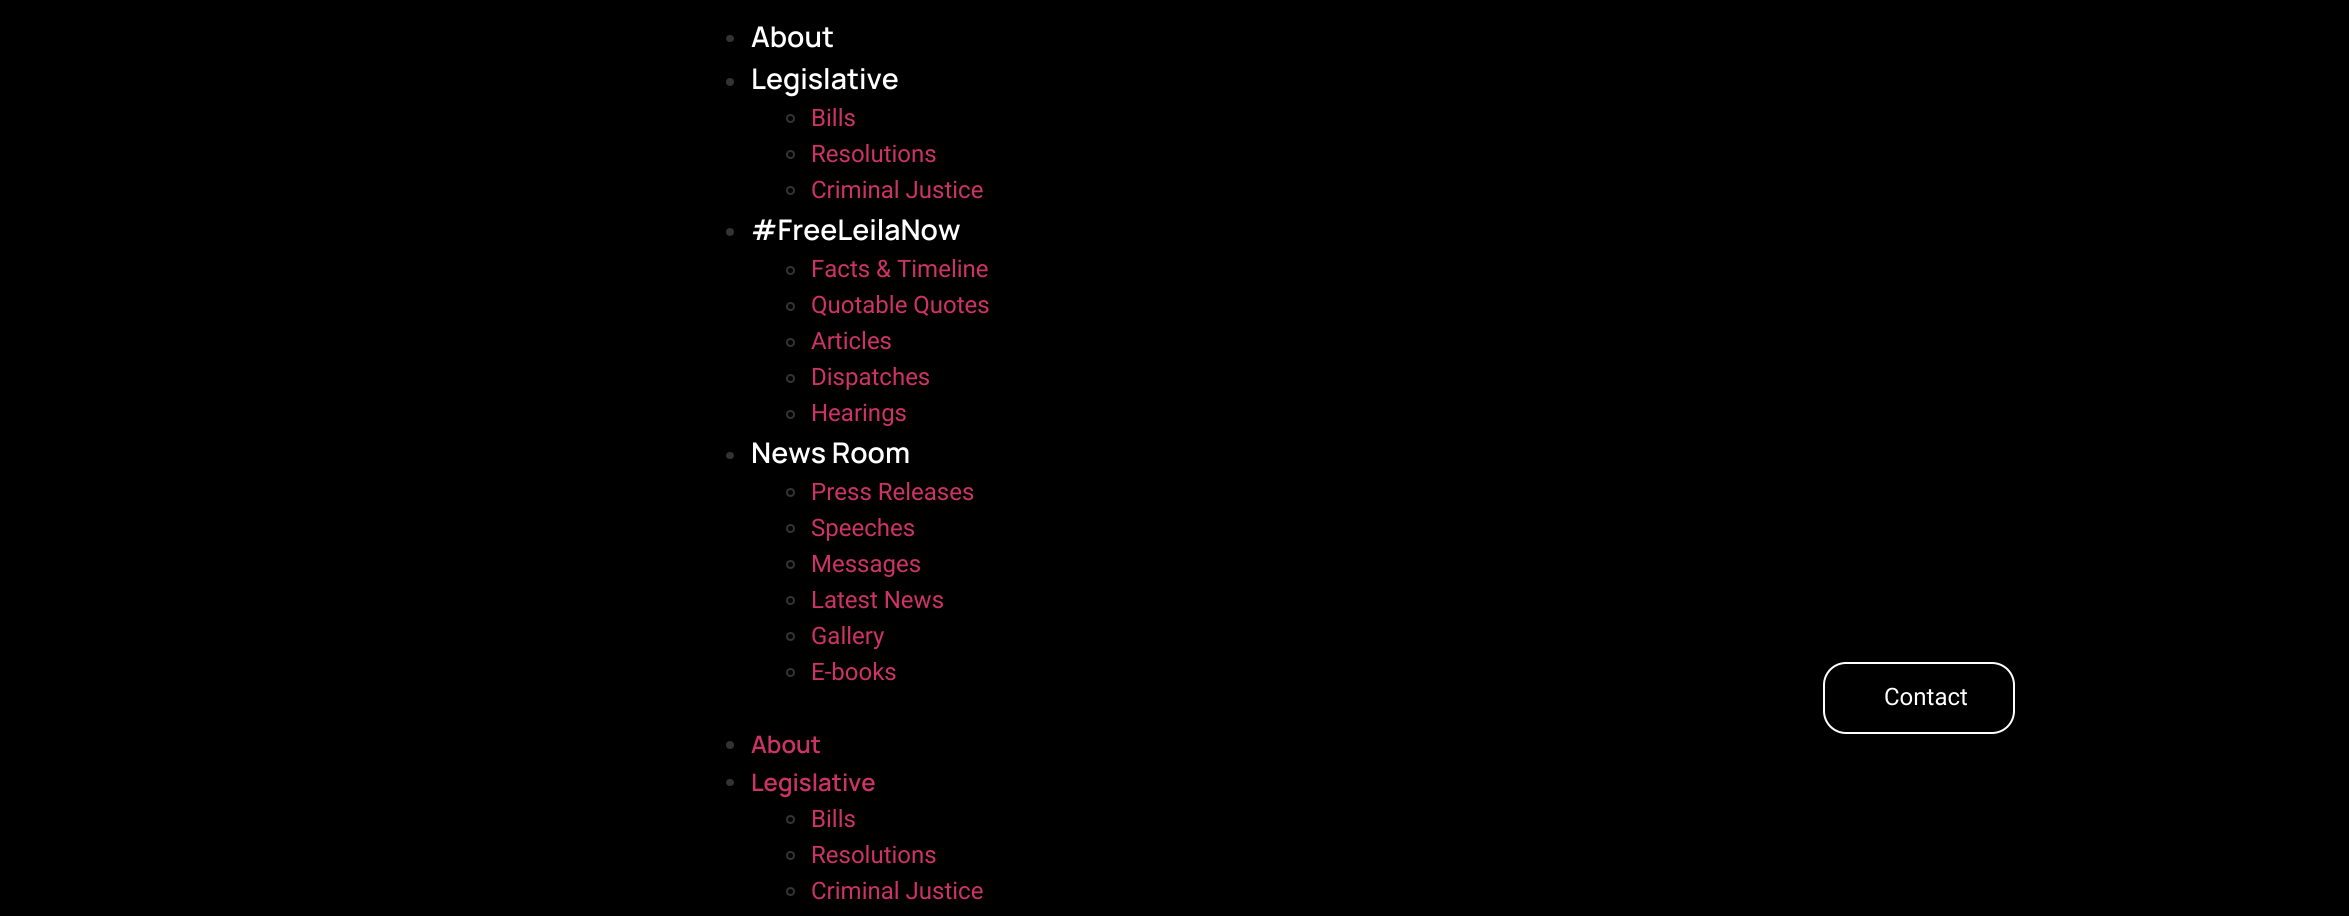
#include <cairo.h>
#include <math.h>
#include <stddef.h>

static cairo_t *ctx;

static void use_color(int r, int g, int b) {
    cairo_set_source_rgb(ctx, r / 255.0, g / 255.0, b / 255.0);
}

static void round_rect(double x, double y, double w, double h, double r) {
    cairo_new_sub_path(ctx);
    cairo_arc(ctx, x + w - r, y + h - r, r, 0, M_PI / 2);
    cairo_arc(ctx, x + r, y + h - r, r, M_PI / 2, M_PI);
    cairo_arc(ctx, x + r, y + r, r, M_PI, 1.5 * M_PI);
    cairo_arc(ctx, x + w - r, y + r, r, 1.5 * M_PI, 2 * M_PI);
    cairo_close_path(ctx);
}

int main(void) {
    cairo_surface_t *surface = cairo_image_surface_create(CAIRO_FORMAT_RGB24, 2349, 916);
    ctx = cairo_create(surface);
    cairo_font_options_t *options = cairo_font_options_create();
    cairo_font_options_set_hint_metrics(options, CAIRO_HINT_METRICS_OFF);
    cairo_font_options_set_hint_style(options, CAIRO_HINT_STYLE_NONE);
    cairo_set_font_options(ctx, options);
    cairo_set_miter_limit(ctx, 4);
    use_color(0, 0, 0);
    cairo_paint(ctx);
    use_color(51, 51, 51);
    round_rect(726, 35, 8, 7, 3.5);
    cairo_fill(ctx);
    cairo_select_font_face(ctx, "Manrope SemiBold", CAIRO_FONT_SLANT_NORMAL, CAIRO_FONT_WEIGHT_NORMAL);
    cairo_set_font_size(ctx, 28.5);
    use_color(255, 255, 255);
    cairo_move_to(ctx, 751, 47);
    cairo_show_text(ctx, "About");
    use_color(51, 51, 51);
    cairo_new_path(ctx);
    cairo_arc(ctx, 730, 82, 4, 0, 2 * M_PI);
    cairo_fill(ctx);
    use_color(255, 255, 255);
    cairo_move_to(ctx, 751, 89);
    cairo_show_text(ctx, "Legislative");
    cairo_new_path(ctx);
    cairo_arc(ctx, 790.5, 118.5, 3.5, 0, 2 * M_PI);
    use_color(51, 51, 51);
    cairo_stroke(ctx);
    cairo_select_font_face(ctx, "Roboto", CAIRO_FONT_SLANT_NORMAL, CAIRO_FONT_WEIGHT_NORMAL);
    cairo_set_font_size(ctx, 24);
    use_color(204, 51, 102);
    cairo_move_to(ctx, 811, 126);
    cairo_show_text(ctx, "Bills");
    cairo_new_path(ctx);
    cairo_arc(ctx, 790.5, 154.5, 3.5, 0, 2 * M_PI);
    use_color(51, 51, 51);
    cairo_stroke(ctx);
    use_color(204, 51, 102);
    cairo_move_to(ctx, 811, 162);
    cairo_show_text(ctx, "Resolutions");
    cairo_new_path(ctx);
    cairo_arc(ctx, 790.5, 190.5, 3.5, 0, 2 * M_PI);
    use_color(51, 51, 51);
    cairo_stroke(ctx);
    use_color(204, 51, 102);
    cairo_move_to(ctx, 811, 198);
    cairo_show_text(ctx, "Criminal Justice");
    use_color(51, 51, 51);
    cairo_new_path(ctx);
    cairo_arc(ctx, 730, 232, 4, 0, 2 * M_PI);
    cairo_fill(ctx);
    cairo_select_font_face(ctx, "Manrope SemiBold", CAIRO_FONT_SLANT_NORMAL, CAIRO_FONT_WEIGHT_NORMAL);
    cairo_set_font_size(ctx, 28.5);
    use_color(255, 255, 255);
    cairo_move_to(ctx, 751, 240);
    cairo_show_text(ctx, "#FreeLeilaNow");
    cairo_new_path(ctx);
    cairo_arc(ctx, 790.5, 270.5, 3.5, 0, 2 * M_PI);
    use_color(51, 51, 51);
    cairo_stroke(ctx);
    cairo_select_font_face(ctx, "Roboto", CAIRO_FONT_SLANT_NORMAL, CAIRO_FONT_WEIGHT_NORMAL);
    cairo_set_font_size(ctx, 24);
    use_color(204, 51, 102);
    cairo_move_to(ctx, 811, 277);
    cairo_show_text(ctx, "Facts & Timeline");
    cairo_new_path(ctx);
    cairo_arc(ctx, 790.5, 306.5, 3.5, 0, 2 * M_PI);
    use_color(51, 51, 51);
    cairo_stroke(ctx);
    use_color(204, 51, 102);
    cairo_move_to(ctx, 811, 313);
    cairo_show_text(ctx, "Quotable Quotes");
    cairo_new_path(ctx);
    cairo_arc(ctx, 790.5, 342.5, 3.5, 0, 2 * M_PI);
    use_color(51, 51, 51);
    cairo_stroke(ctx);
    use_color(204, 51, 102);
    cairo_move_to(ctx, 811, 349);
    cairo_show_text(ctx, "Articles");
    cairo_new_path(ctx);
    cairo_arc(ctx, 790.5, 378.5, 3.5, 0, 2 * M_PI);
    use_color(51, 51, 51);
    cairo_stroke(ctx);
    use_color(204, 51, 102);
    cairo_move_to(ctx, 811, 385);
    cairo_show_text(ctx, "Dispatches");
    cairo_new_path(ctx);
    cairo_arc(ctx, 790.5, 414.5, 3.5, 0, 2 * M_PI);
    use_color(51, 51, 51);
    cairo_stroke(ctx);
    use_color(204, 51, 102);
    cairo_move_to(ctx, 811, 421);
    cairo_show_text(ctx, "Hearings");
    use_color(51, 51, 51);
    round_rect(726, 452, 8, 7, 3.5);
    cairo_fill(ctx);
    cairo_select_font_face(ctx, "Manrope SemiBold", CAIRO_FONT_SLANT_NORMAL, CAIRO_FONT_WEIGHT_NORMAL);
    cairo_set_font_size(ctx, 28.5);
    use_color(255, 255, 255);
    cairo_move_to(ctx, 751, 463);
    cairo_show_text(ctx, "News Room");
    cairo_new_path(ctx);
    cairo_arc(ctx, 790.5, 492.5, 3.5, 0, 2 * M_PI);
    use_color(51, 51, 51);
    cairo_stroke(ctx);
    cairo_select_font_face(ctx, "Roboto", CAIRO_FONT_SLANT_NORMAL, CAIRO_FONT_WEIGHT_NORMAL);
    cairo_set_font_size(ctx, 24);
    use_color(204, 51, 102);
    cairo_move_to(ctx, 811, 500);
    cairo_show_text(ctx, "Press Releases");
    cairo_new_path(ctx);
    cairo_arc(ctx, 790.5, 528.5, 3.5, 0, 2 * M_PI);
    use_color(51, 51, 51);
    cairo_stroke(ctx);
    use_color(204, 51, 102);
    cairo_move_to(ctx, 811, 536);
    cairo_show_text(ctx, "Speeches");
    cairo_new_path(ctx);
    cairo_arc(ctx, 790.5, 564.5, 3.5, 0, 2 * M_PI);
    use_color(51, 51, 51);
    cairo_stroke(ctx);
    use_color(204, 51, 102);
    cairo_move_to(ctx, 811, 572);
    cairo_show_text(ctx, "Messages");
    cairo_new_path(ctx);
    cairo_arc(ctx, 790.5, 600.5, 3.5, 0, 2 * M_PI);
    use_color(51, 51, 51);
    cairo_stroke(ctx);
    use_color(204, 51, 102);
    cairo_move_to(ctx, 811, 608);
    cairo_show_text(ctx, "Latest News");
    cairo_new_path(ctx);
    cairo_arc(ctx, 790.5, 636.5, 3.5, 0, 2 * M_PI);
    use_color(51, 51, 51);
    cairo_stroke(ctx);
    use_color(204, 51, 102);
    cairo_move_to(ctx, 811, 644);
    cairo_show_text(ctx, "Gallery");
    cairo_new_path(ctx);
    cairo_arc(ctx, 790.5, 672.5, 3.5, 0, 2 * M_PI);
    use_color(51, 51, 51);
    cairo_stroke(ctx);
    use_color(204, 51, 102);
    cairo_move_to(ctx, 811, 680);
    cairo_show_text(ctx, "E-books");
    use_color(51, 51, 51);
    cairo_new_path(ctx);
    cairo_arc(ctx, 730, 745, 4, 0, 2 * M_PI);
    cairo_fill(ctx);
    cairo_select_font_face(ctx, "Manrope SemiBold", CAIRO_FONT_SLANT_NORMAL, CAIRO_FONT_WEIGHT_NORMAL);
    use_color(204, 51, 102);
    cairo_move_to(ctx, 751, 753);
    cairo_show_text(ctx, "About");
    use_color(51, 51, 51);
    round_rect(726, 779, 8, 7, 3.5);
    cairo_fill(ctx);
    use_color(204, 51, 102);
    cairo_move_to(ctx, 751, 791);
    cairo_show_text(ctx, "Legislative");
    cairo_new_path(ctx);
    cairo_arc(ctx, 790.5, 819.5, 3.5, 0, 2 * M_PI);
    use_color(51, 51, 51);
    cairo_stroke(ctx);
    cairo_select_font_face(ctx, "Roboto", CAIRO_FONT_SLANT_NORMAL, CAIRO_FONT_WEIGHT_NORMAL);
    use_color(204, 51, 102);
    cairo_move_to(ctx, 811, 827);
    cairo_show_text(ctx, "Bills");
    cairo_new_path(ctx);
    cairo_arc(ctx, 790.5, 855.5, 3.5, 0, 2 * M_PI);
    use_color(51, 51, 51);
    cairo_stroke(ctx);
    use_color(204, 51, 102);
    cairo_move_to(ctx, 811, 863);
    cairo_show_text(ctx, "Resolutions");
    cairo_new_path(ctx);
    cairo_arc(ctx, 790.5, 891.5, 3.5, 0, 2 * M_PI);
    use_color(51, 51, 51);
    cairo_stroke(ctx);
    use_color(204, 51, 102);
    cairo_move_to(ctx, 811, 899);
    cairo_show_text(ctx, "Criminal Justice");
    round_rect(1824, 663, 190, 70, 22);
    use_color(255, 255, 255);
    cairo_stroke(ctx);
    cairo_move_to(ctx, 1884, 705);
    cairo_show_text(ctx, "Contact");
    cairo_surface_write_to_png(surface, "result.png");
    cairo_font_options_destroy(options);
    cairo_destroy(ctx);
    cairo_surface_destroy(surface);
    return 0;
}
